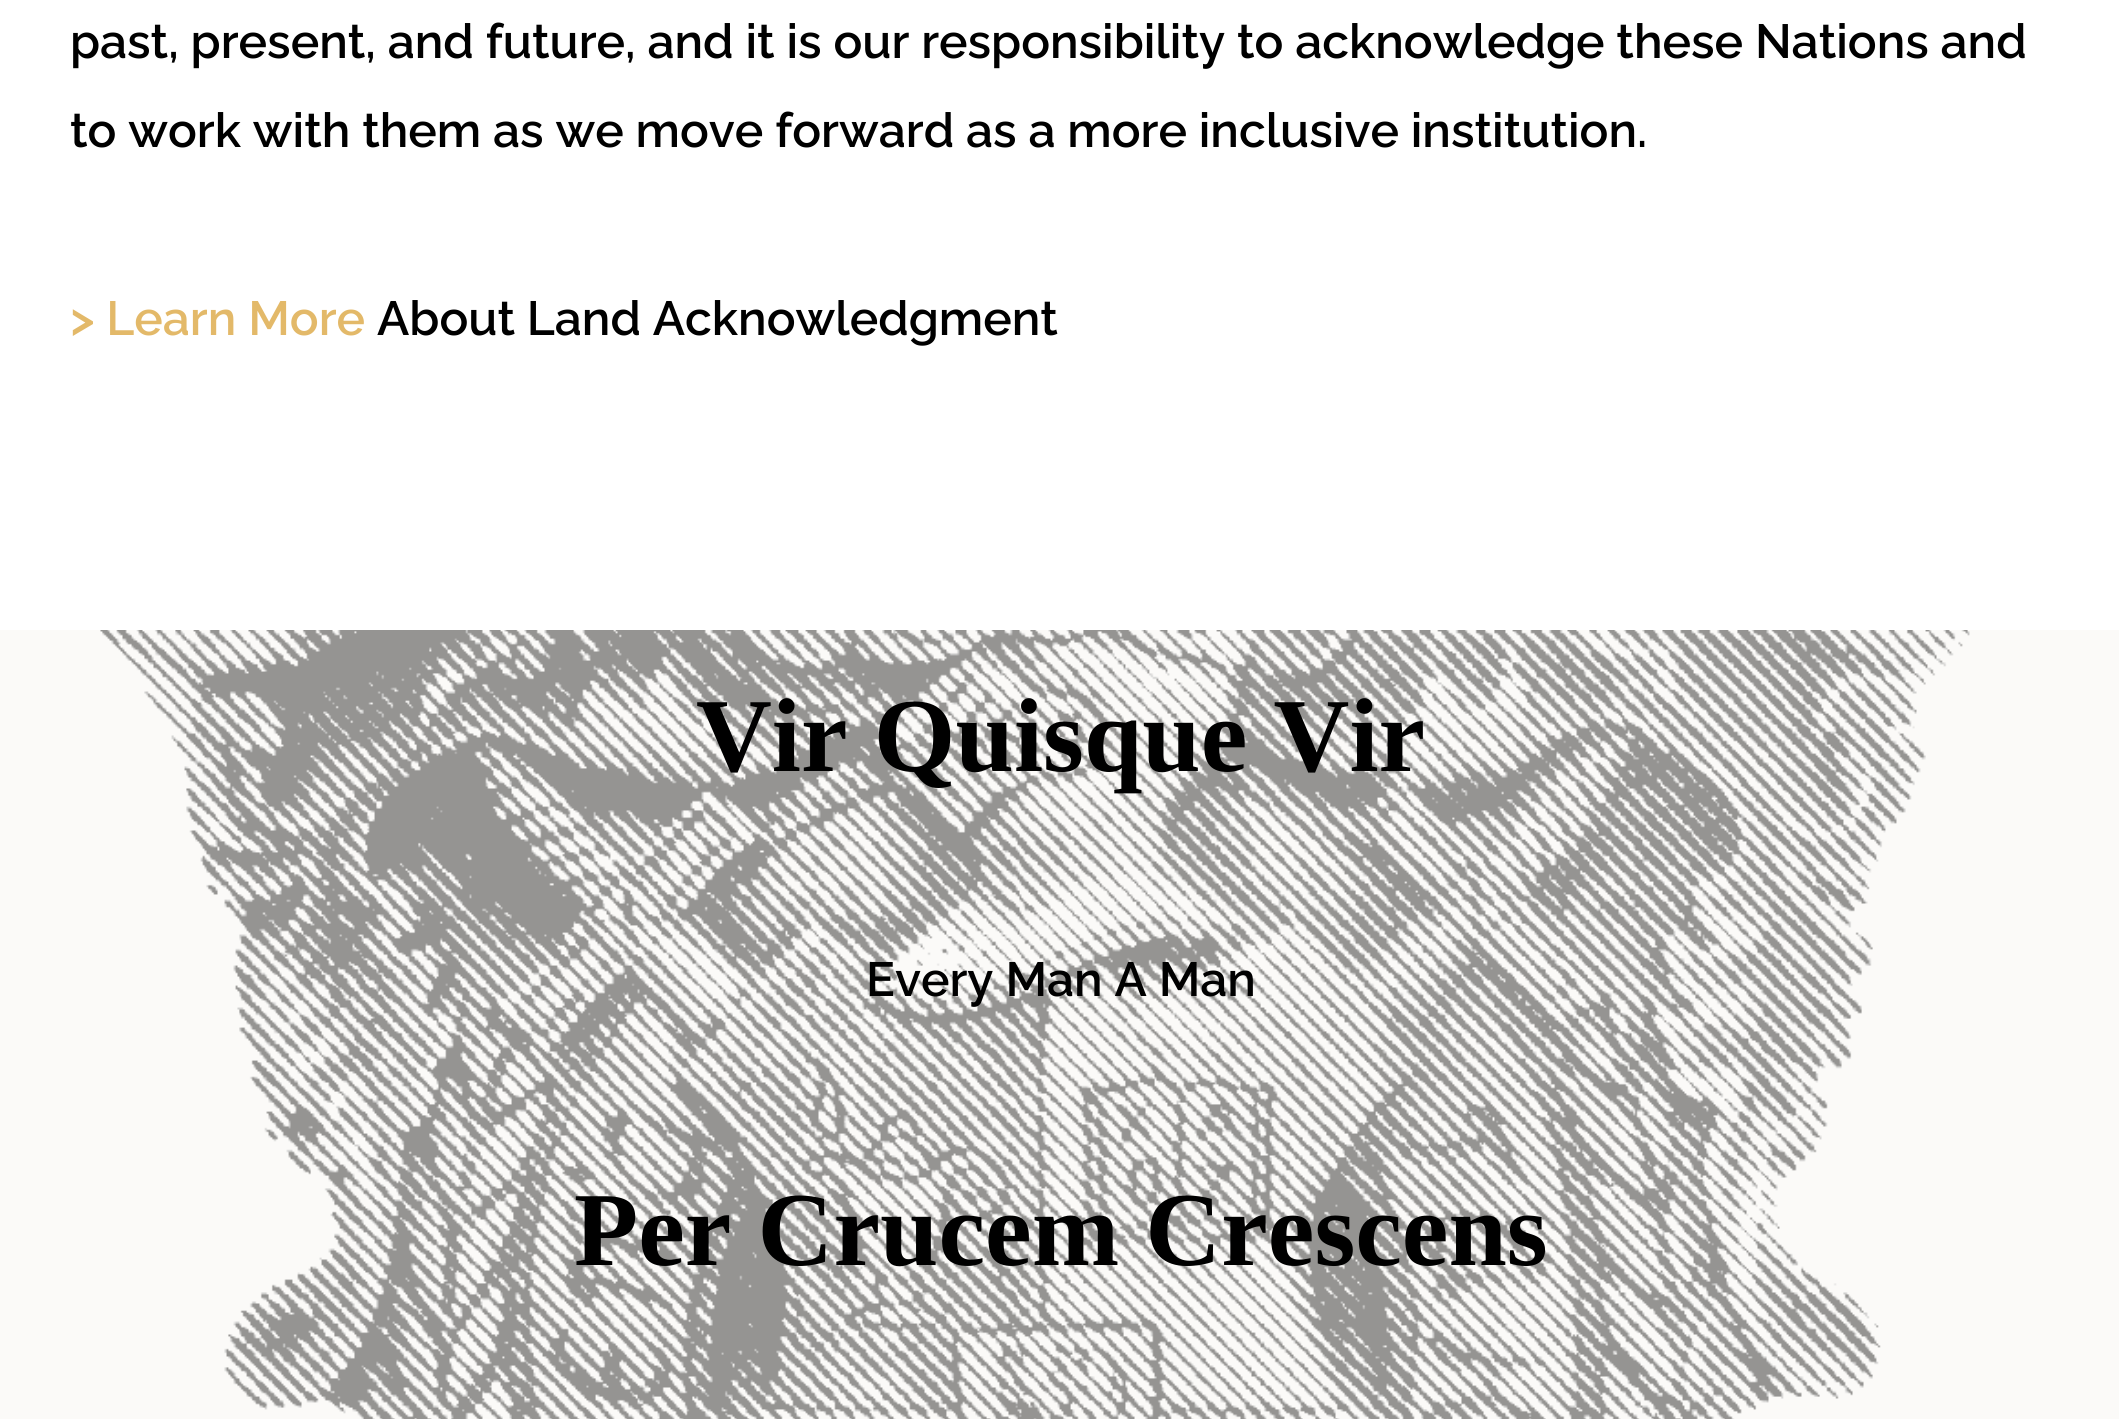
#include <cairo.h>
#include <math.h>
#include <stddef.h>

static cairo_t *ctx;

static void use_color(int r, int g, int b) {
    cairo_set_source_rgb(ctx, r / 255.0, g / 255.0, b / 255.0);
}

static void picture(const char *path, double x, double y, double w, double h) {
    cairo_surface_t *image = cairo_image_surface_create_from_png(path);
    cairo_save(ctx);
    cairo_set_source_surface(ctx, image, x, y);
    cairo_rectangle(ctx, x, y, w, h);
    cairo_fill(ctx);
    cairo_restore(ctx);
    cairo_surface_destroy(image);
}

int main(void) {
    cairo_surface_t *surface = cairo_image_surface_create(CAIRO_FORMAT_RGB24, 2119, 1419);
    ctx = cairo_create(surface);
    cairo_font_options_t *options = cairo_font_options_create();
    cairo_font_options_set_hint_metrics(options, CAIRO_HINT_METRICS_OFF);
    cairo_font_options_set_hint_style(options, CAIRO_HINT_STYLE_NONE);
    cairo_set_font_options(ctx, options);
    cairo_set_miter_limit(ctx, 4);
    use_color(249, 247, 243);
    cairo_paint(ctx);
    use_color(255, 255, 255);
    cairo_rectangle(ctx, 0, 0, 2119, 630);
    cairo_fill(ctx);
    cairo_select_font_face(ctx, "Raleway Thin", CAIRO_FONT_SLANT_NORMAL, CAIRO_FONT_WEIGHT_NORMAL);
    cairo_set_font_size(ctx, 47.9);
    use_color(0, 0, 0);
    cairo_move_to(ctx, 70, 58);
    cairo_show_text(ctx, "past, present, and future, and it is our responsibility to acknowledge these Nations and");
    cairo_move_to(ctx, 70, 147);
    cairo_show_text(ctx, "to work with them as we move forward as a more inclusive institution.");
    use_color(227, 185, 105);
    cairo_move_to(ctx, 70, 335);
    cairo_show_text(ctx, "> Learn More");
    use_color(0, 0, 0);
    cairo_move_to(ctx, 377, 335);
    cairo_show_text(ctx, "About Land Acknowledgment");
    picture("img1.png", 0, 630, 2119, 789);
    cairo_select_font_face(ctx, "Liberation Serif", CAIRO_FONT_SLANT_NORMAL, CAIRO_FONT_WEIGHT_BOLD);
    cairo_set_font_size(ctx, 105);
    cairo_move_to(ctx, 696, 771);
    cairo_show_text(ctx, "Vir Quisque Vir");
    cairo_select_font_face(ctx, "Raleway Thin", CAIRO_FONT_SLANT_NORMAL, CAIRO_FONT_WEIGHT_NORMAL);
    cairo_set_font_size(ctx, 47.9);
    cairo_move_to(ctx, 866, 996);
    cairo_show_text(ctx, "Every Man A Man");
    cairo_select_font_face(ctx, "Liberation Serif", CAIRO_FONT_SLANT_NORMAL, CAIRO_FONT_WEIGHT_BOLD);
    cairo_set_font_size(ctx, 105);
    cairo_move_to(ctx, 574, 1265);
    cairo_show_text(ctx, "Per Crucem Crescens");
    cairo_surface_write_to_png(surface, "result.png");
    cairo_font_options_destroy(options);
    cairo_destroy(ctx);
    cairo_surface_destroy(surface);
    return 0;
}
